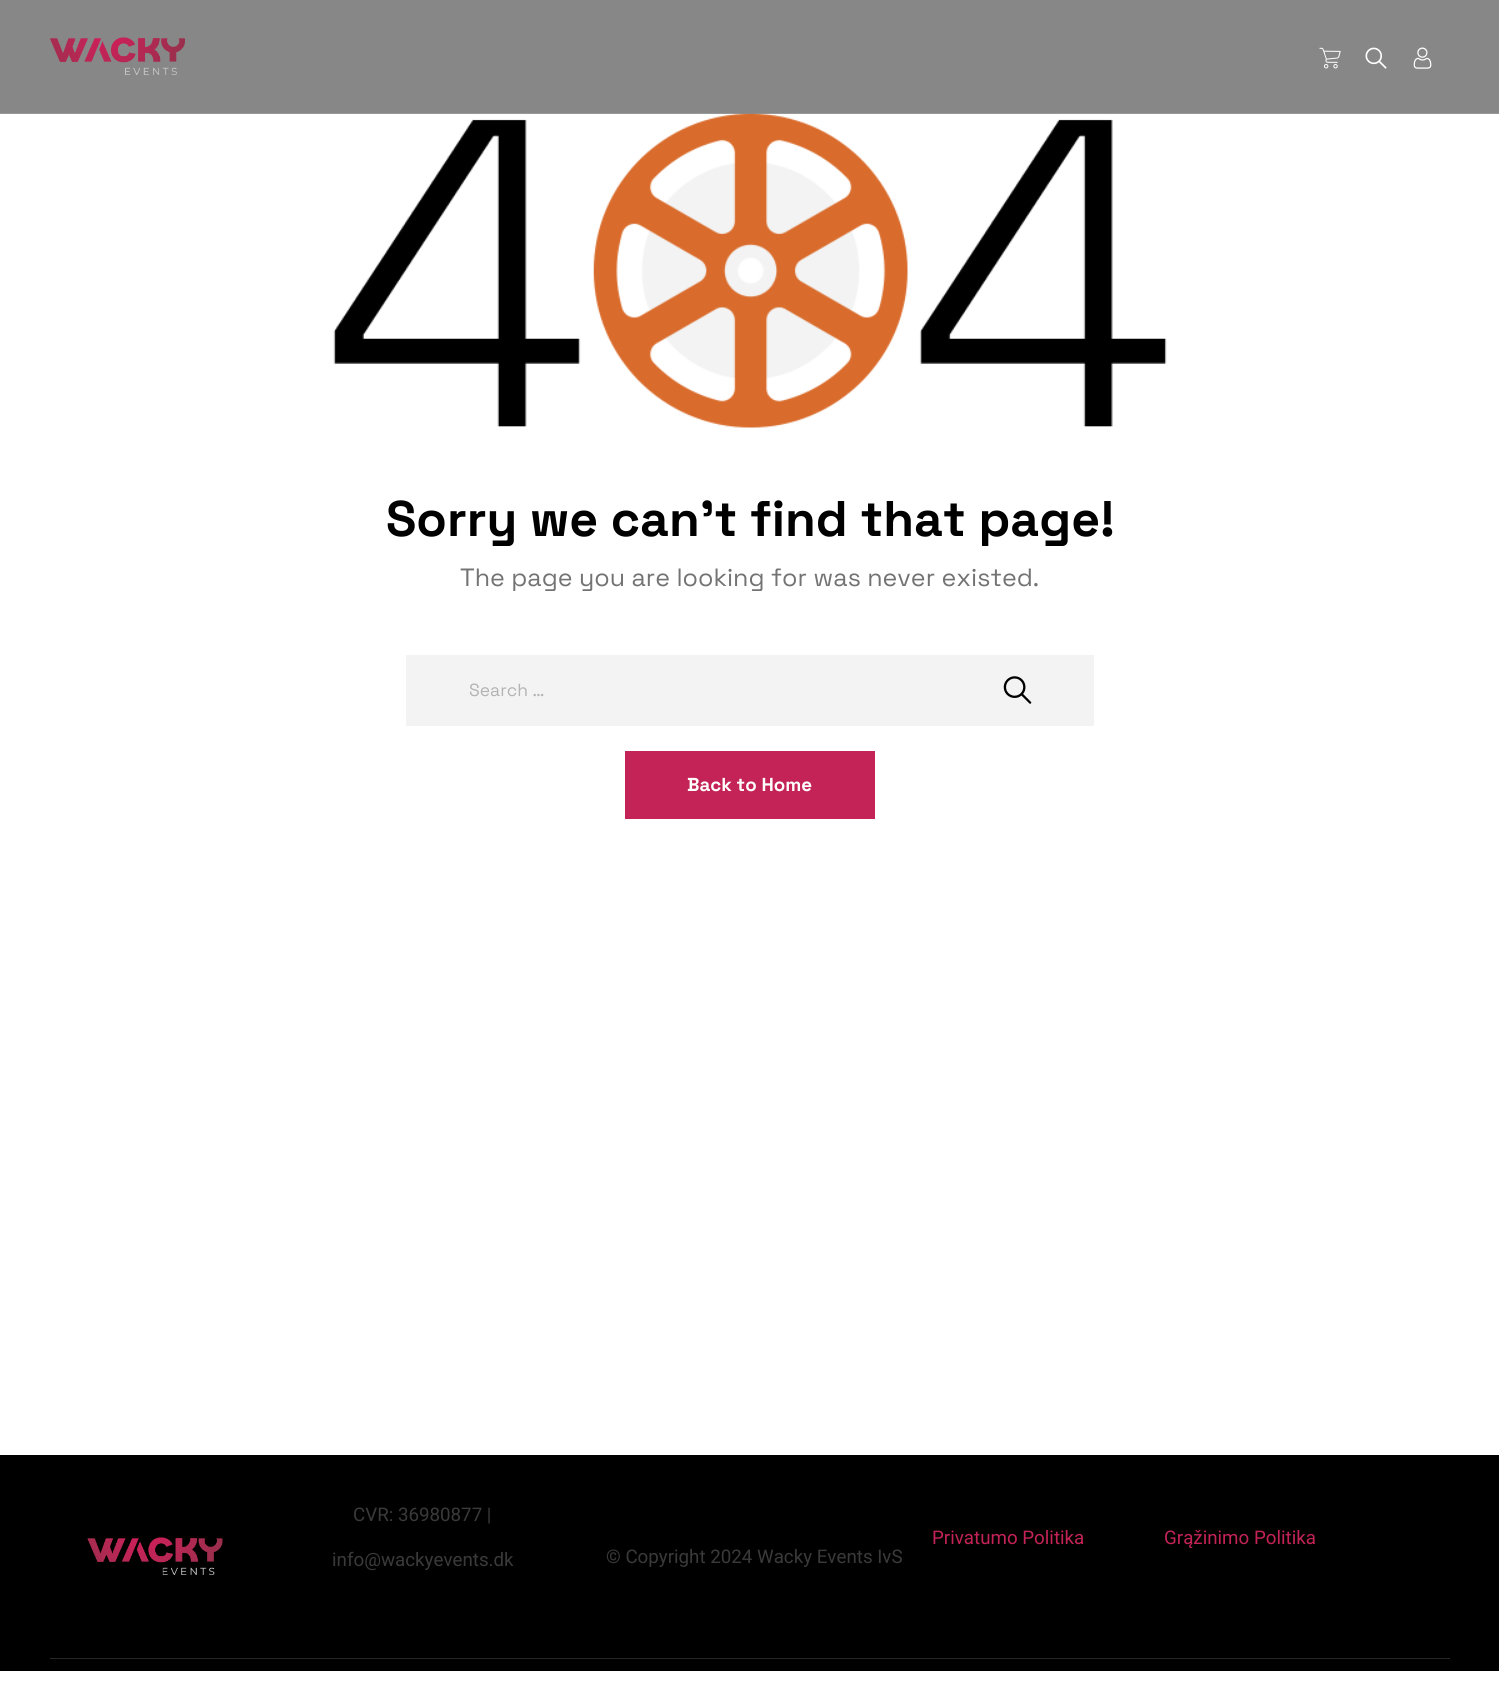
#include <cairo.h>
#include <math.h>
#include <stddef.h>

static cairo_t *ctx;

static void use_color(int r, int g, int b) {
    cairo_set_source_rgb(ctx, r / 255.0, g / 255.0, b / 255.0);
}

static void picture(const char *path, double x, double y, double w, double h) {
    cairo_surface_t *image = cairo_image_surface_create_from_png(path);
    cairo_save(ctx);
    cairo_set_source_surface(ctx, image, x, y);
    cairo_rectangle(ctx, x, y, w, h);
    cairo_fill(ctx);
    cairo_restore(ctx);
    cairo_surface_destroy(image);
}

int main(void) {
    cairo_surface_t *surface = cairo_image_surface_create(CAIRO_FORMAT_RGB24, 1499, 1704);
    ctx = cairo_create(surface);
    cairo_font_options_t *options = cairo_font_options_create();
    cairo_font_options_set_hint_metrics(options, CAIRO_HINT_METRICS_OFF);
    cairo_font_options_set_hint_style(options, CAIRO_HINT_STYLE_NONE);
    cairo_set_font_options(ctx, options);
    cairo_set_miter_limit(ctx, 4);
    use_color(255, 255, 255);
    cairo_paint(ctx);
    picture("img5.png", 333, 113, 834, 319);
    cairo_set_source_rgba(ctx, 0, 0, 0, 0.47);
    cairo_rectangle(ctx, 0, 0, 1499, 114);
    cairo_fill(ctx);
    cairo_set_source_rgba(ctx, 1, 1, 1, 0.15);
    cairo_rectangle(ctx, 0, 113, 1499, 1);
    cairo_fill(ctx);
    picture("img1.png", 50, 37, 135, 38);
    picture("img2.png", 1319, 47, 22, 22);
    picture("img3.png", 1365, 47, 22, 22);
    picture("img4.png", 1413, 47, 19, 22);
    cairo_select_font_face(ctx, "Space Grotesk", CAIRO_FONT_SLANT_NORMAL, CAIRO_FONT_WEIGHT_BOLD);
    cairo_set_font_size(ctx, 50);
    use_color(0, 0, 0);
    cairo_move_to(ctx, 386, 536);
    cairo_show_text(ctx, "Sorry we can't find that page!");
    cairo_select_font_face(ctx, "Space Grotesk", CAIRO_FONT_SLANT_NORMAL, CAIRO_FONT_WEIGHT_NORMAL);
    cairo_set_font_size(ctx, 25);
    use_color(115, 115, 115);
    cairo_move_to(ctx, 460, 586);
    cairo_show_text(ctx, "The page you are looking for was never existed.");
    use_color(243, 243, 243);
    cairo_rectangle(ctx, 406, 655, 688, 71);
    cairo_fill(ctx);
    cairo_set_font_size(ctx, 17.5);
    use_color(179, 179, 179);
    cairo_move_to(ctx, 469, 696);
    cairo_show_text(ctx, "Search …");
    picture("img6.png", 1003, 676, 29, 28);
    use_color(195, 35, 86);
    cairo_rectangle(ctx, 625, 751, 250, 68);
    cairo_fill(ctx);
    cairo_select_font_face(ctx, "Space Grotesk", CAIRO_FONT_SLANT_NORMAL, CAIRO_FONT_WEIGHT_BOLD);
    cairo_set_font_size(ctx, 18.75);
    use_color(255, 255, 255);
    cairo_move_to(ctx, 687, 791);
    cairo_show_text(ctx, "Back to Home");
    use_color(0, 0, 0);
    cairo_rectangle(ctx, 0, 1455, 1499, 216);
    cairo_fill(ctx);
    use_color(38, 38, 38);
    cairo_rectangle(ctx, 50, 1658, 1400, 1);
    cairo_fill(ctx);
    picture("img7.png", 87, 1537, 136, 38);
    cairo_select_font_face(ctx, "Roboto", CAIRO_FONT_SLANT_NORMAL, CAIRO_FONT_WEIGHT_NORMAL);
    use_color(58, 58, 58);
    cairo_move_to(ctx, 353, 1521);
    cairo_show_text(ctx, "CVR: 36980877 |");
    cairo_move_to(ctx, 332, 1566);
    cairo_show_text(ctx, "info@wackyevents.dk");
    cairo_move_to(ctx, 606, 1563);
    cairo_show_text(ctx, "© Copyright 2024 Wacky Events IvS");
    use_color(195, 35, 86);
    cairo_move_to(ctx, 932, 1544);
    cairo_show_text(ctx, "Privatumo Politika");
    cairo_move_to(ctx, 1164, 1544);
    cairo_show_text(ctx, "Grąžinimo Politika");
    cairo_surface_write_to_png(surface, "result.png");
    cairo_font_options_destroy(options);
    cairo_destroy(ctx);
    cairo_surface_destroy(surface);
    return 0;
}
